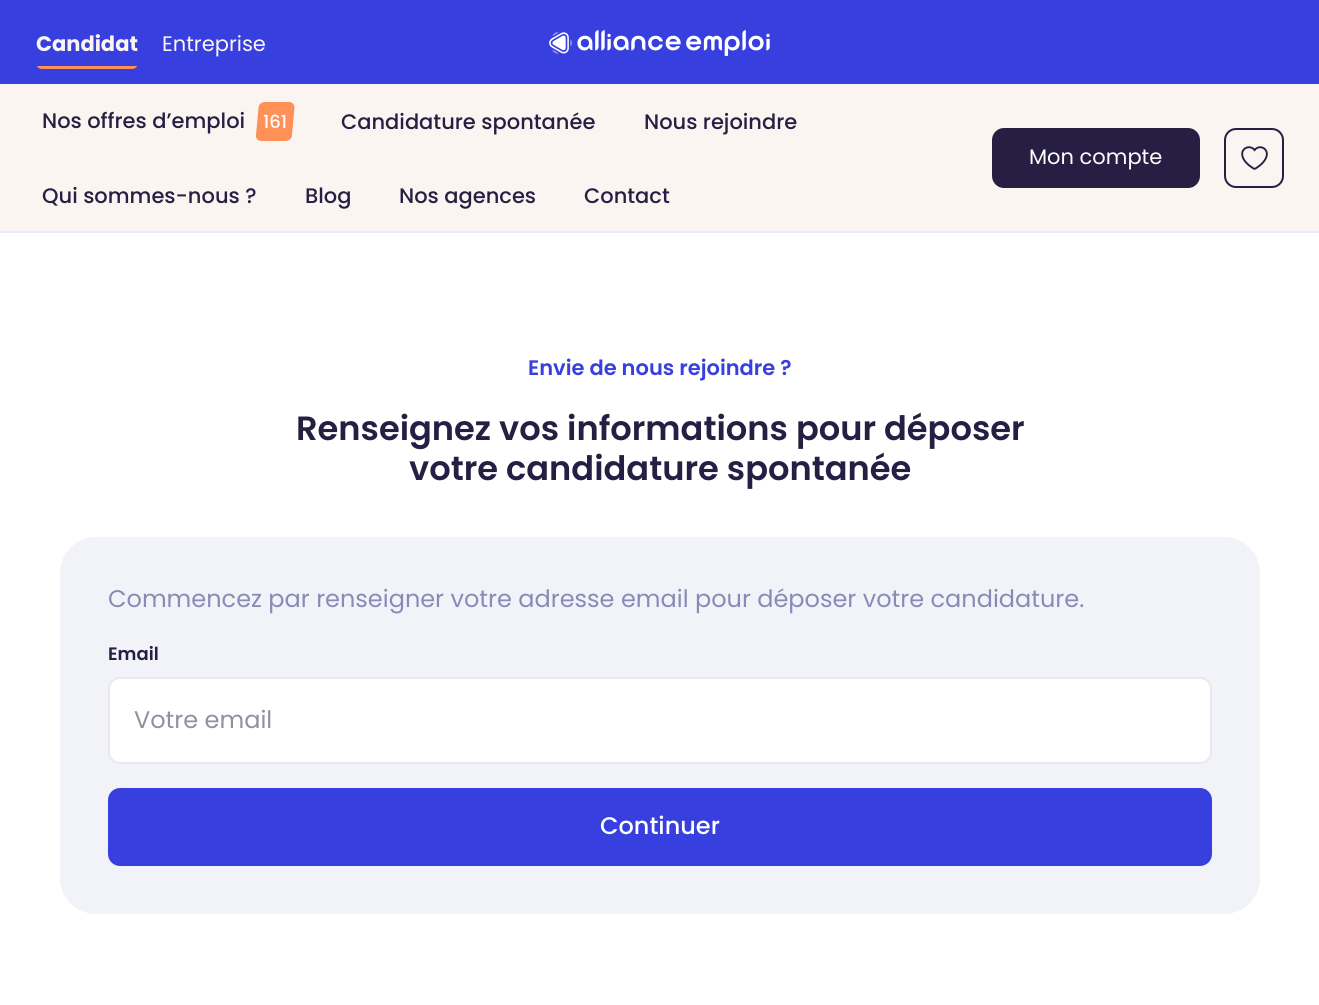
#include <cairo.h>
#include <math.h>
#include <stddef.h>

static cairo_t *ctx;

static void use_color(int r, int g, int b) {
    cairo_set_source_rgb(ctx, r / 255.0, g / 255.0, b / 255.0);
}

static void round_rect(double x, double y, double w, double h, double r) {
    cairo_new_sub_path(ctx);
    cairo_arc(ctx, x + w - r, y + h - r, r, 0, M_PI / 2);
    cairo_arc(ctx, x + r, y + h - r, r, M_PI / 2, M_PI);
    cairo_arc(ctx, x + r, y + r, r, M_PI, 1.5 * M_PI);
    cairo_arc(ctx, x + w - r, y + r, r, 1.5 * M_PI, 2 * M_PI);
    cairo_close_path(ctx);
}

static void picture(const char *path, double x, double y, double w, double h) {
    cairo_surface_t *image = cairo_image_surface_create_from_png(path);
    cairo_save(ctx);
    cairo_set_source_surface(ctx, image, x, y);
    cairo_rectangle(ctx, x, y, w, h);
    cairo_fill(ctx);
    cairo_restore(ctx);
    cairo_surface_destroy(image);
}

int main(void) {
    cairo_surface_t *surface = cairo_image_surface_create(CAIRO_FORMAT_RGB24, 1319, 1005);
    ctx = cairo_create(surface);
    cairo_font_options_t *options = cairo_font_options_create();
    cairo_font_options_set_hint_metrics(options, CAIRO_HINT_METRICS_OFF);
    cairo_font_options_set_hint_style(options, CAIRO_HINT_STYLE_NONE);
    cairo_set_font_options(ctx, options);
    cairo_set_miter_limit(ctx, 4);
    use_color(255, 255, 255);
    cairo_paint(ctx);
    use_color(55, 63, 223);
    cairo_rectangle(ctx, 0, 0, 1319, 84);
    cairo_fill(ctx);
    picture("img1.png", 549, 30, 221, 26);
    use_color(251, 245, 241);
    cairo_rectangle(ctx, 0, 84, 1319, 147);
    cairo_fill(ctx);
    use_color(233, 231, 255);
    cairo_rectangle(ctx, 0, 231, 1319, 2);
    cairo_fill(ctx);
    use_color(255, 144, 88);
    round_rect(36, 26, 102, 43, 6);
    cairo_fill(ctx);
    use_color(55, 63, 223);
    cairo_rectangle(ctx, 36, 26, 102, 40);
    cairo_fill(ctx);
    cairo_select_font_face(ctx, "Poppins", CAIRO_FONT_SLANT_NORMAL, CAIRO_FONT_WEIGHT_BOLD);
    cairo_set_font_size(ctx, 21);
    use_color(251, 245, 241);
    cairo_move_to(ctx, 36, 51);
    cairo_show_text(ctx, "Candidat");
    cairo_select_font_face(ctx, "Poppins", CAIRO_FONT_SLANT_NORMAL, CAIRO_FONT_WEIGHT_NORMAL);
    cairo_move_to(ctx, 162, 51);
    cairo_show_text(ctx, "Entreprise");
    cairo_select_font_face(ctx, "Poppins Medium", CAIRO_FONT_SLANT_NORMAL, CAIRO_FONT_WEIGHT_NORMAL);
    use_color(39, 31, 67);
    cairo_move_to(ctx, 42, 128);
    cairo_show_text(ctx, "Nos offres d’emploi");
    use_color(255, 144, 88);
    cairo_new_path(ctx);
    cairo_move_to(ctx, 265, 102);
    cairo_line_to(ctx, 289, 102);
    cairo_curve_to(ctx, 292.5, 102, 294.5, 104.5, 294.5, 108);
    cairo_line_to(ctx, 292, 135);
    cairo_curve_to(ctx, 292, 138.5, 289, 141, 285.5, 141);
    cairo_line_to(ctx, 261.5, 141);
    cairo_curve_to(ctx, 258, 141, 255.5, 138.5, 256, 135);
    cairo_line_to(ctx, 258.5, 108);
    cairo_curve_to(ctx, 258.5, 104.5, 261.5, 102, 265, 102);
    cairo_close_path(ctx);
    cairo_fill(ctx);
    cairo_set_font_size(ctx, 18);
    use_color(255, 255, 255);
    cairo_move_to(ctx, 263, 128);
    cairo_show_text(ctx, "161");
    cairo_set_font_size(ctx, 21);
    use_color(39, 31, 67);
    cairo_move_to(ctx, 341, 129);
    cairo_show_text(ctx, "Candidature spontanée");
    cairo_move_to(ctx, 644, 129);
    cairo_show_text(ctx, "Nous rejoindre");
    cairo_move_to(ctx, 42, 203);
    cairo_show_text(ctx, "Qui sommes-nous ?");
    cairo_move_to(ctx, 305, 203);
    cairo_show_text(ctx, "Blog");
    cairo_move_to(ctx, 399, 203);
    cairo_show_text(ctx, "Nos agences");
    cairo_move_to(ctx, 584, 203);
    cairo_show_text(ctx, "Contact");
    round_rect(993, 129, 206, 58, 11);
    cairo_fill_preserve(ctx);
    cairo_stroke(ctx);
    cairo_select_font_face(ctx, "Poppins", CAIRO_FONT_SLANT_NORMAL, CAIRO_FONT_WEIGHT_NORMAL);
    use_color(255, 255, 255);
    cairo_move_to(ctx, 1029, 164);
    cairo_show_text(ctx, "Mon compte");
    round_rect(1225, 129, 58, 58, 11);
    use_color(39, 31, 67);
    cairo_stroke(ctx);
    picture("img2.png", 1241, 146, 27, 24);
    cairo_select_font_face(ctx, "Poppins SemiBold", CAIRO_FONT_SLANT_NORMAL, CAIRO_FONT_WEIGHT_NORMAL);
    use_color(55, 63, 223);
    cairo_move_to(ctx, 528, 375);
    cairo_show_text(ctx, "Envie de nous rejoindre ?");
    cairo_set_font_size(ctx, 33.65);
    use_color(39, 31, 67);
    cairo_move_to(ctx, 296, 440);
    cairo_show_text(ctx, "Renseignez vos informations pour déposer");
    cairo_move_to(ctx, 409, 480);
    cairo_show_text(ctx, "votre candidature spontanée");
    use_color(241, 243, 249);
    round_rect(60, 537, 1200, 377, 36);
    cairo_fill(ctx);
    cairo_select_font_face(ctx, "Poppins", CAIRO_FONT_SLANT_NORMAL, CAIRO_FONT_WEIGHT_NORMAL);
    cairo_set_font_size(ctx, 24);
    use_color(136, 139, 181);
    cairo_move_to(ctx, 108, 607);
    cairo_show_text(ctx, "Commencez par renseigner votre adresse email pour déposer votre candidature.");
    cairo_select_font_face(ctx, "Poppins SemiBold", CAIRO_FONT_SLANT_NORMAL, CAIRO_FONT_WEIGHT_NORMAL);
    cairo_set_font_size(ctx, 18);
    use_color(39, 31, 67);
    cairo_move_to(ctx, 108, 660);
    cairo_show_text(ctx, "Email");
    use_color(255, 255, 255);
    round_rect(109, 678, 1102, 85, 11);
    cairo_fill_preserve(ctx);
    use_color(233, 233, 236);
    cairo_stroke(ctx);
    cairo_select_font_face(ctx, "Poppins", CAIRO_FONT_SLANT_NORMAL, CAIRO_FONT_WEIGHT_NORMAL);
    cairo_set_font_size(ctx, 24);
    use_color(147, 143, 161);
    cairo_move_to(ctx, 134, 728);
    cairo_show_text(ctx, "Votre email");
    use_color(55, 63, 223);
    round_rect(108, 788, 1104, 78, 12);
    cairo_fill(ctx);
    cairo_select_font_face(ctx, "Poppins Medium", CAIRO_FONT_SLANT_NORMAL, CAIRO_FONT_WEIGHT_NORMAL);
    use_color(255, 255, 255);
    cairo_move_to(ctx, 600, 834);
    cairo_show_text(ctx, "Continuer");
    cairo_surface_write_to_png(surface, "result.png");
    cairo_font_options_destroy(options);
    cairo_destroy(ctx);
    cairo_surface_destroy(surface);
    return 0;
}
